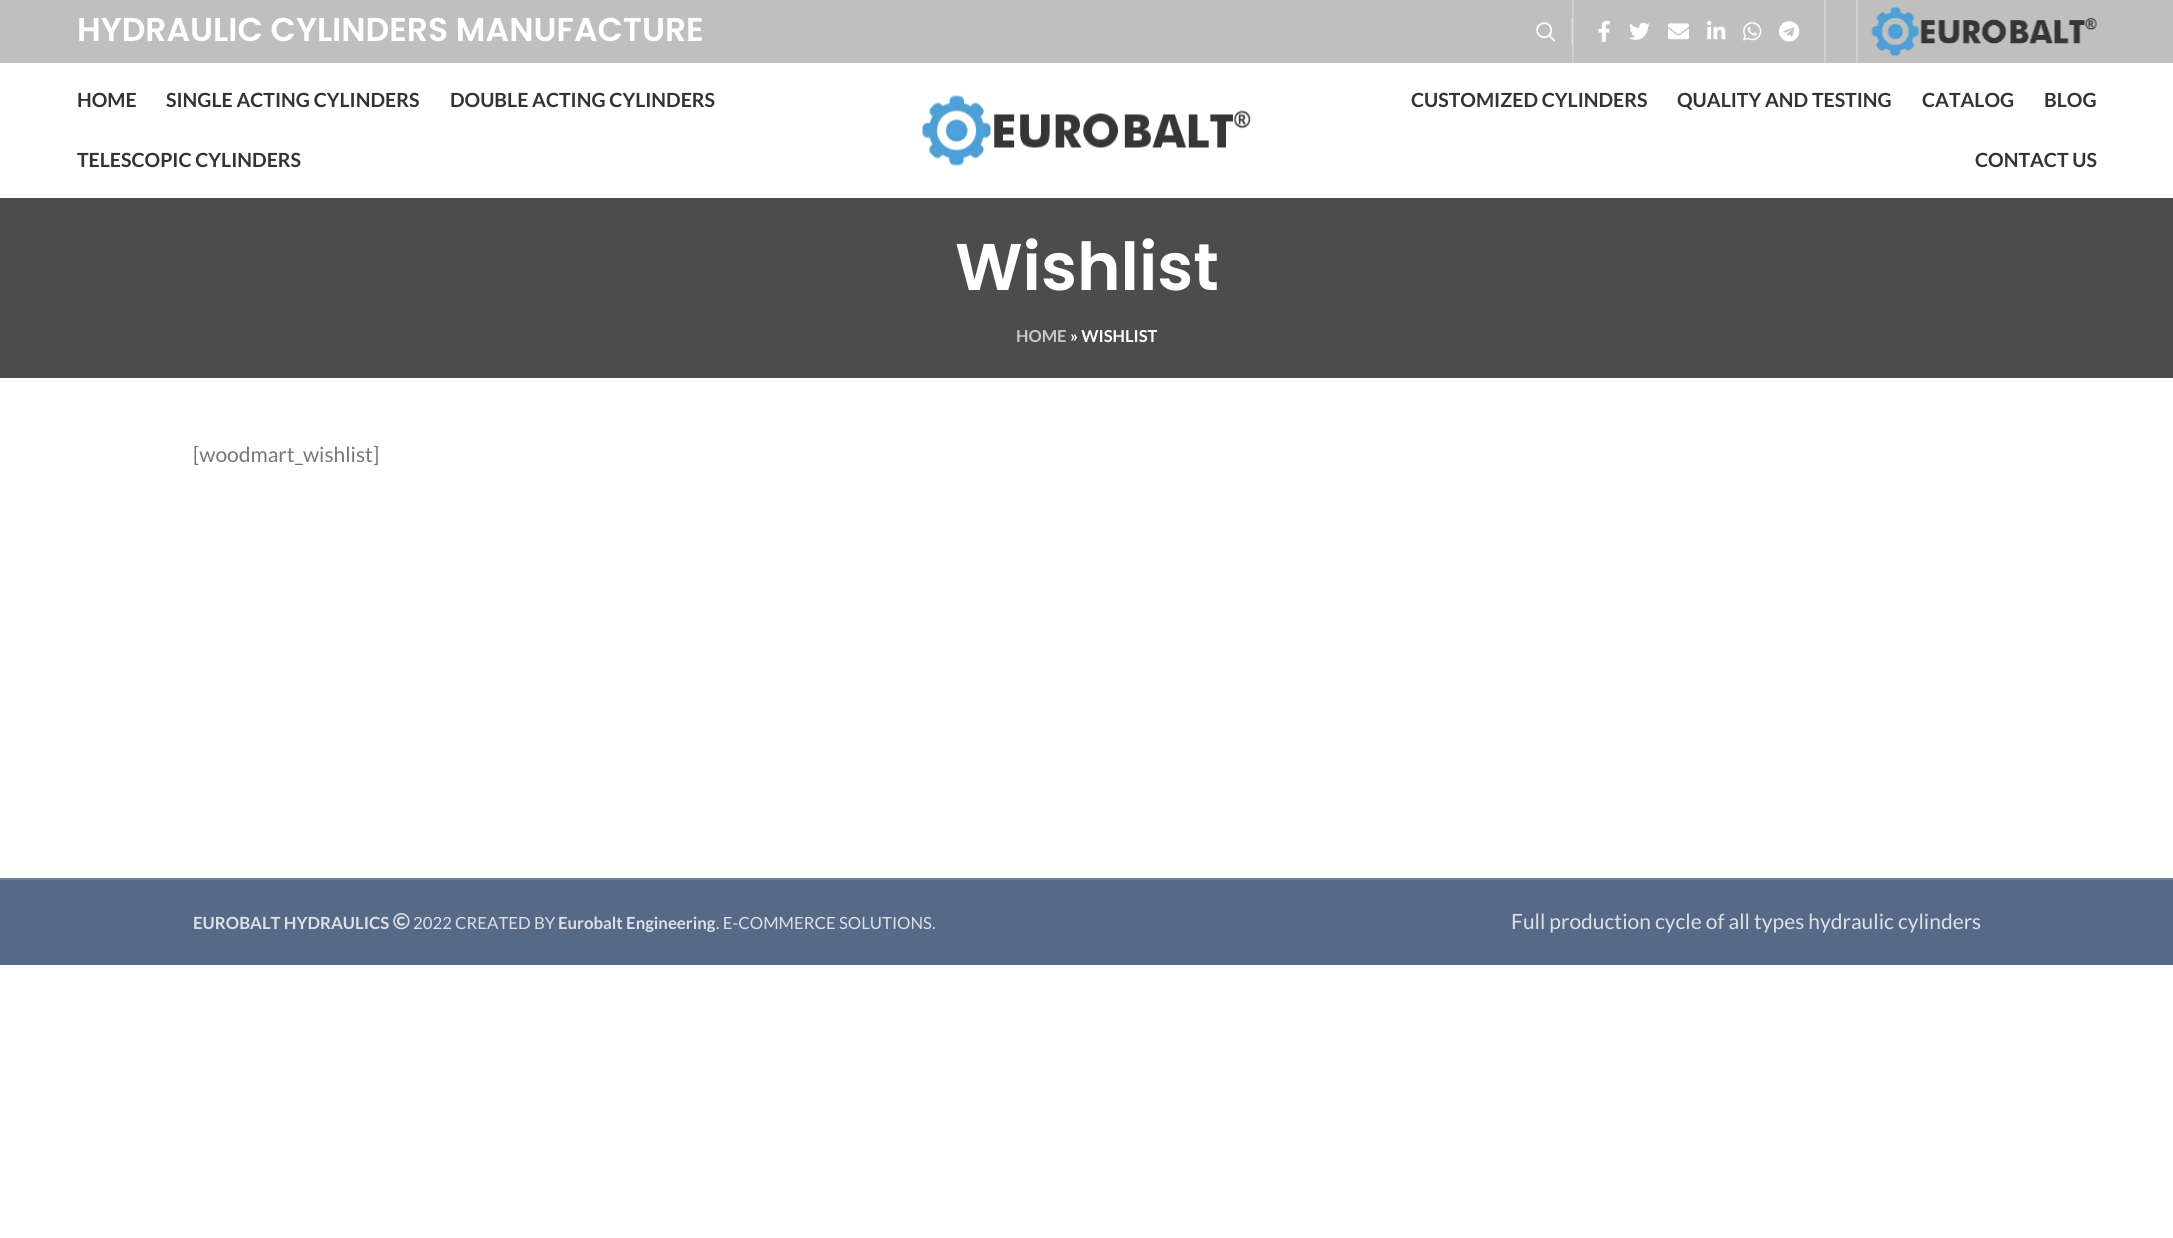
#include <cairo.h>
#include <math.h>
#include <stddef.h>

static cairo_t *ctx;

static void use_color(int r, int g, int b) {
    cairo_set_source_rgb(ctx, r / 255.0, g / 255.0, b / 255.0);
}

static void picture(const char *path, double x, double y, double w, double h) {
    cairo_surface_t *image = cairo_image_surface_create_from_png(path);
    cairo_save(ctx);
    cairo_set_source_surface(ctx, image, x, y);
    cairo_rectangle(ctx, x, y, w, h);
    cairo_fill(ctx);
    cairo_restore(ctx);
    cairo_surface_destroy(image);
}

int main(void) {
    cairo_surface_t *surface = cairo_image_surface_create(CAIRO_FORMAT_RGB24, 2173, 1238);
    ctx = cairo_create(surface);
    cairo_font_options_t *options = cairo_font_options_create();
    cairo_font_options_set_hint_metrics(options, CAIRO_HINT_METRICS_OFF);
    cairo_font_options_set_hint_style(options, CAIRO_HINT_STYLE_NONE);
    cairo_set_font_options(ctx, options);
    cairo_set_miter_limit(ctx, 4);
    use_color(255, 255, 255);
    cairo_paint(ctx);
    use_color(191, 191, 191);
    cairo_rectangle(ctx, 0, 0, 2173, 63);
    cairo_fill(ctx);
    use_color(207, 207, 207);
    cairo_rectangle(ctx, 1572, 0, 2, 63);
    cairo_fill(ctx);
    cairo_select_font_face(ctx, "Poppins SemiBold", CAIRO_FONT_SLANT_NORMAL, CAIRO_FONT_WEIGHT_NORMAL);
    cairo_set_font_size(ctx, 33);
    use_color(255, 255, 255);
    cairo_move_to(ctx, 77, 41);
    cairo_show_text(ctx, "HYDRAULIC CYLINDERS MANUFACTURE");
    picture("img1.png", 1536, 22, 20, 20);
    use_color(207, 207, 207);
    cairo_rectangle(ctx, 1571, 18, 1, 27);
    cairo_fill(ctx);
    use_color(219, 219, 219);
    cairo_rectangle(ctx, 1572, 18, 1, 27);
    cairo_fill(ctx);
    picture("img2.png", 1598, 20, 12, 22);
    picture("img3.png", 1629, 22, 21, 18);
    picture("img4.png", 1668, 23, 21, 17);
    picture("img5.png", 1707, 20, 19, 20);
    picture("img6.png", 1743, 22, 19, 19);
    picture("img7.png", 1779, 21, 21, 21);
    use_color(207, 207, 207);
    cairo_rectangle(ctx, 1824, 0, 2, 63);
    cairo_fill(ctx);
    cairo_rectangle(ctx, 1856, 0, 2, 63);
    cairo_fill(ctx);
    picture("img8.png", 1871, 7, 226, 49);
    cairo_select_font_face(ctx, "Lato", CAIRO_FONT_SLANT_NORMAL, CAIRO_FONT_WEIGHT_BOLD);
    cairo_set_font_size(ctx, 19.5);
    use_color(51, 51, 51);
    cairo_move_to(ctx, 77, 107);
    cairo_show_text(ctx, "HOME");
    cairo_move_to(ctx, 166, 107);
    cairo_show_text(ctx, "SINGLE ACTING CYLINDERS");
    cairo_move_to(ctx, 450, 107);
    cairo_show_text(ctx, "DOUBLE ACTING CYLINDERS");
    cairo_move_to(ctx, 77, 167);
    cairo_show_text(ctx, "TELESCOPIC CYLINDERS");
    picture("img9.png", 922, 95, 329, 71);
    cairo_move_to(ctx, 1411, 107);
    cairo_show_text(ctx, "CUSTOMIZED CYLINDERS");
    cairo_move_to(ctx, 1677, 107);
    cairo_show_text(ctx, "QUALITY AND TESTING");
    cairo_move_to(ctx, 1922, 107);
    cairo_show_text(ctx, "CATALOG");
    cairo_move_to(ctx, 2044, 107);
    cairo_show_text(ctx, "BLOG");
    cairo_move_to(ctx, 1975, 167);
    cairo_show_text(ctx, "CONTACT US");
    use_color(76, 76, 76);
    cairo_rectangle(ctx, 0, 198, 2173, 180);
    cairo_fill(ctx);
    cairo_select_font_face(ctx, "Poppins SemiBold", CAIRO_FONT_SLANT_NORMAL, CAIRO_FONT_WEIGHT_NORMAL);
    cairo_set_font_size(ctx, 66);
    use_color(255, 255, 255);
    cairo_move_to(ctx, 955, 290);
    cairo_show_text(ctx, "Wishlist");
    cairo_select_font_face(ctx, "Lato", CAIRO_FONT_SLANT_NORMAL, CAIRO_FONT_WEIGHT_BOLD);
    cairo_set_font_size(ctx, 16.5);
    use_color(201, 201, 201);
    cairo_move_to(ctx, 1016, 342);
    cairo_show_text(ctx, "HOME");
    use_color(255, 255, 255);
    cairo_move_to(ctx, 1070, 342);
    cairo_show_text(ctx, "» WISHLIST");
    cairo_select_font_face(ctx, "Lato", CAIRO_FONT_SLANT_NORMAL, CAIRO_FONT_WEIGHT_NORMAL);
    cairo_set_font_size(ctx, 21);
    use_color(119, 119, 119);
    cairo_move_to(ctx, 193, 462);
    cairo_show_text(ctx, "[woodmart_wishlist]");
    use_color(86, 105, 135);
    cairo_rectangle(ctx, 0, 880, 2173, 85);
    cairo_fill(ctx);
    use_color(111, 128, 153);
    cairo_rectangle(ctx, 0, 878, 2173, 2);
    cairo_fill(ctx);
    cairo_select_font_face(ctx, "Lato", CAIRO_FONT_SLANT_NORMAL, CAIRO_FONT_WEIGHT_BOLD);
    cairo_set_font_size(ctx, 16.75);
    use_color(221, 225, 231);
    cairo_move_to(ctx, 193, 929);
    cairo_show_text(ctx, "EUROBALT HYDRAULICS");
    picture("img10.png", 393, 913, 17, 17);
    cairo_select_font_face(ctx, "Lato", CAIRO_FONT_SLANT_NORMAL, CAIRO_FONT_WEIGHT_NORMAL);
    cairo_move_to(ctx, 413, 929);
    cairo_show_text(ctx, "2022 CREATED BY");
    cairo_select_font_face(ctx, "Lato", CAIRO_FONT_SLANT_NORMAL, CAIRO_FONT_WEIGHT_BOLD);
    cairo_move_to(ctx, 558, 929);
    cairo_show_text(ctx, "Eurobalt Engineering");
    cairo_select_font_face(ctx, "Lato", CAIRO_FONT_SLANT_NORMAL, CAIRO_FONT_WEIGHT_NORMAL);
    cairo_move_to(ctx, 716, 929);
    cairo_show_text(ctx, ". E-COMMERCE SOLUTIONS.");
    cairo_set_font_size(ctx, 21);
    cairo_move_to(ctx, 1511, 929);
    cairo_show_text(ctx, "Full production cycle of all types hydraulic cylinders");
    cairo_surface_write_to_png(surface, "result.png");
    cairo_font_options_destroy(options);
    cairo_destroy(ctx);
    cairo_surface_destroy(surface);
    return 0;
}
